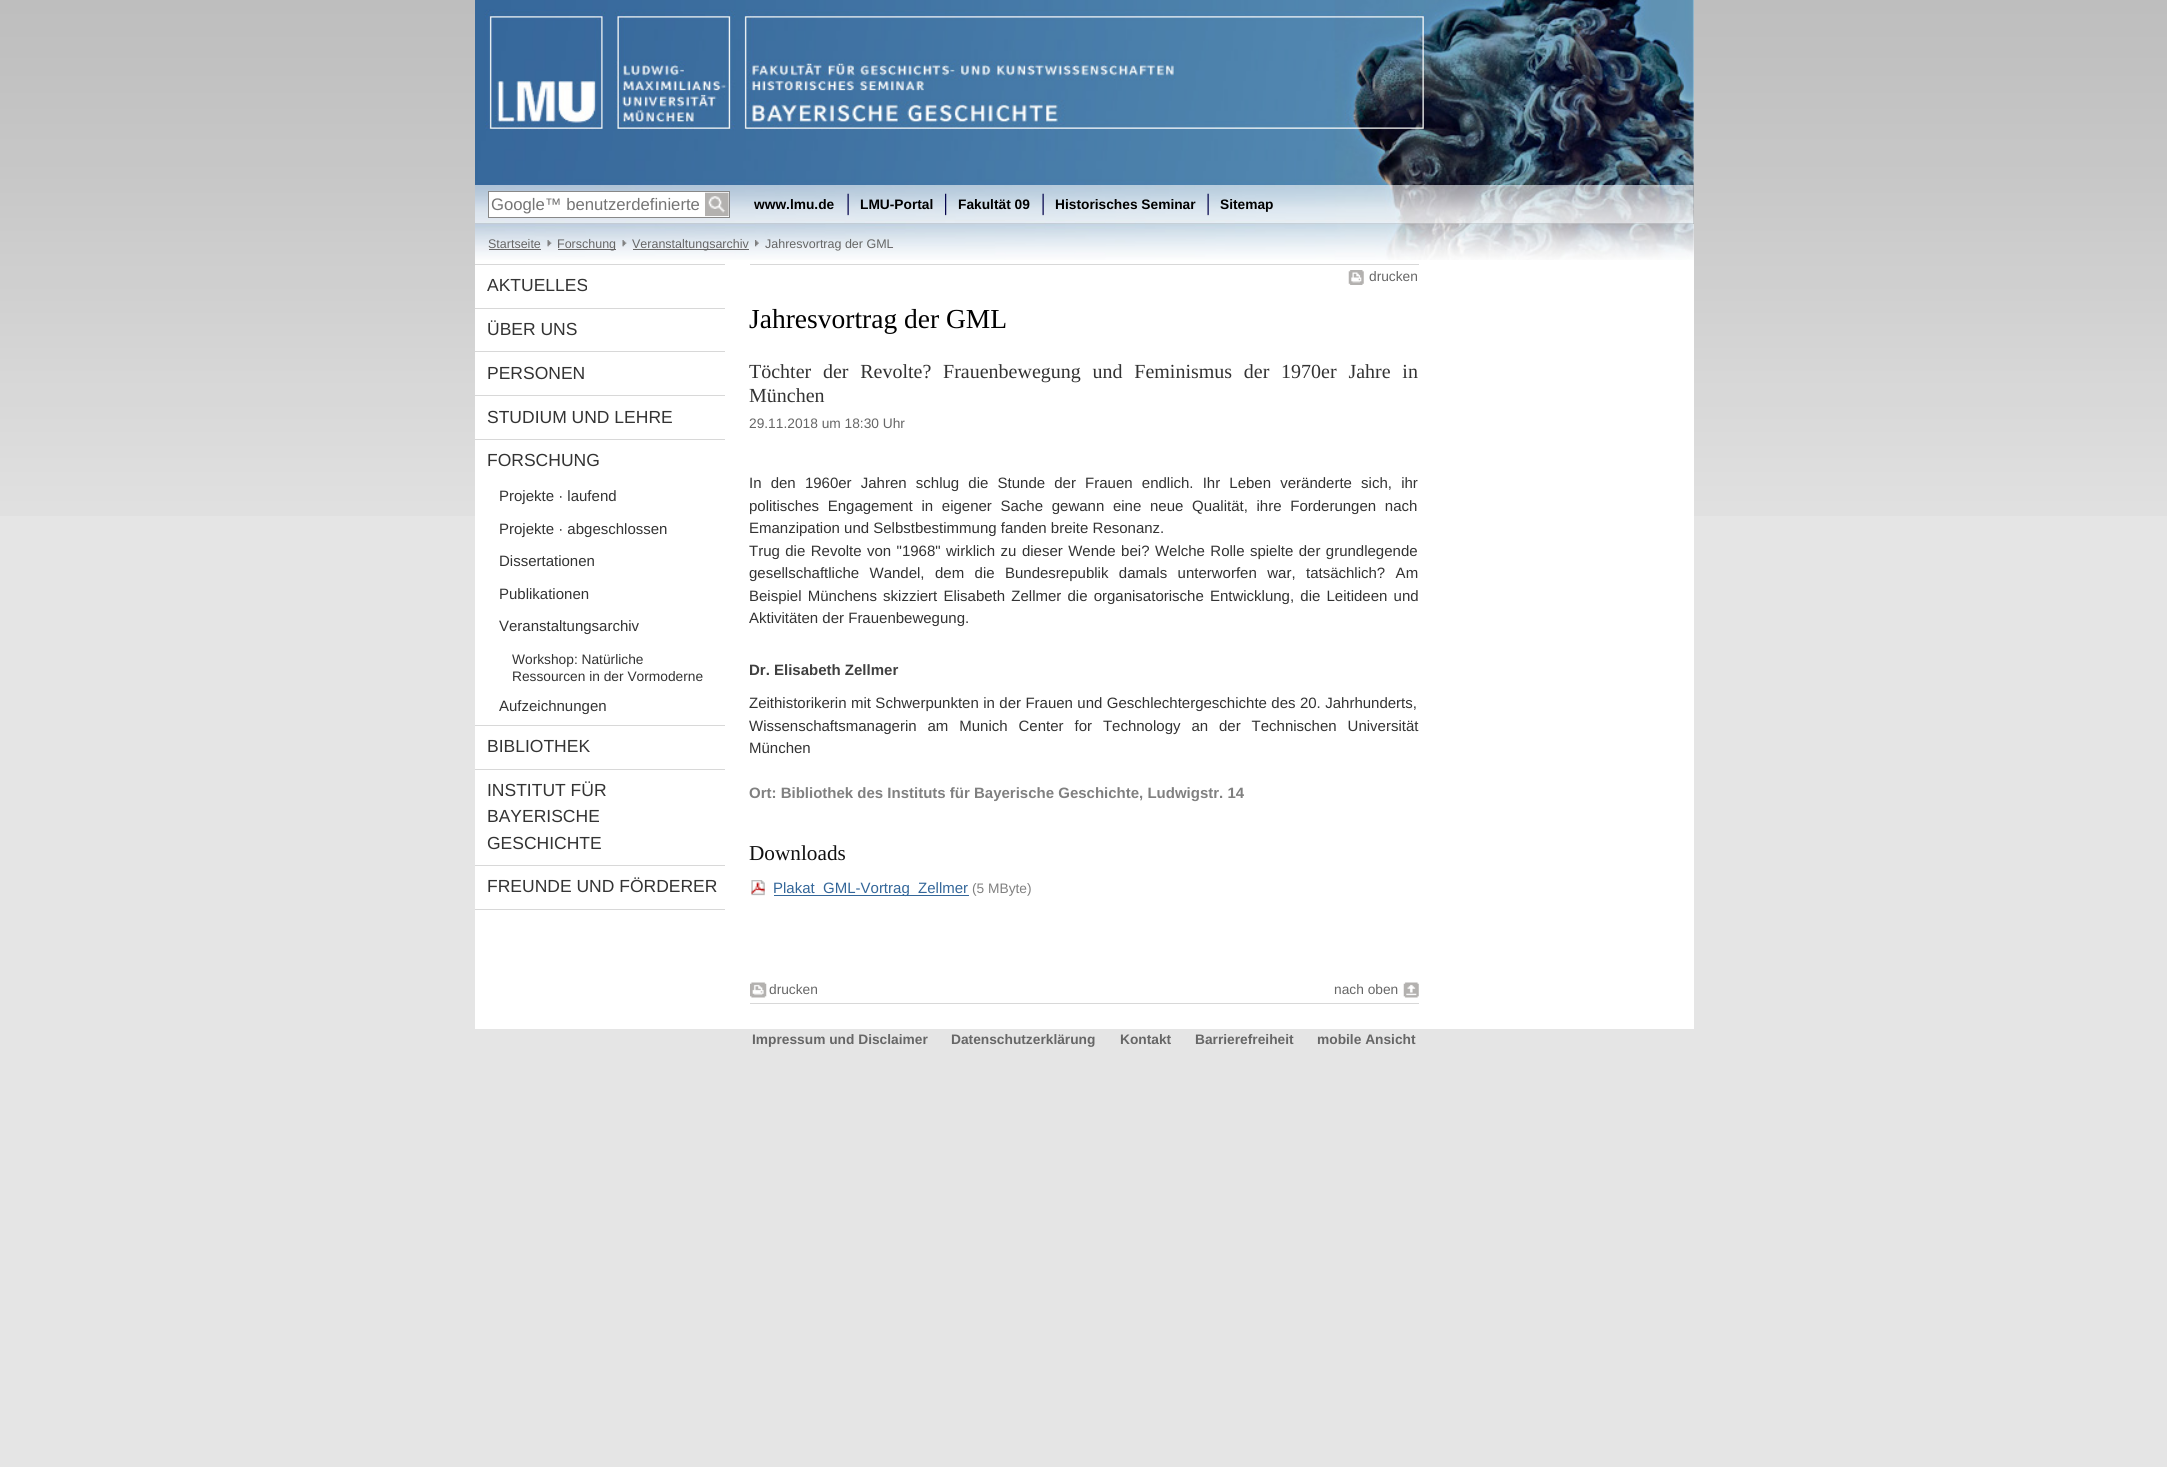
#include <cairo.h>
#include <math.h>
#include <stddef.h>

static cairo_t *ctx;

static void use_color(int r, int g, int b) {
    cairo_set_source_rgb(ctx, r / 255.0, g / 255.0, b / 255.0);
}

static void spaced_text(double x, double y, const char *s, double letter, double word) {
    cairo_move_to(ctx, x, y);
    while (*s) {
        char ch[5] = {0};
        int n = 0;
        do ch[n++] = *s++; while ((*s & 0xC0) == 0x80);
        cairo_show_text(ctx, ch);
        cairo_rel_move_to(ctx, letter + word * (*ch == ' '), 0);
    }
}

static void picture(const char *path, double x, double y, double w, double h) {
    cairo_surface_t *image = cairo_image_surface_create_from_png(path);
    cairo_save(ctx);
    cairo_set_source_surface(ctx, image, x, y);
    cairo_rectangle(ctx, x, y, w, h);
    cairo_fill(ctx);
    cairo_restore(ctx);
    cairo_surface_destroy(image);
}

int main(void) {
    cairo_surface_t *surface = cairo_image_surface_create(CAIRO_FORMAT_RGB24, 2167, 1467);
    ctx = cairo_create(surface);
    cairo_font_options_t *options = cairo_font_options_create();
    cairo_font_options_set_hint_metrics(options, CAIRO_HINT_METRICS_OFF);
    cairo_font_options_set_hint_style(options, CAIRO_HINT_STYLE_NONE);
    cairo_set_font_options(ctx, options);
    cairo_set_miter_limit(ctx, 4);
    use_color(229, 229, 229);
    cairo_paint(ctx);
    picture("img1.png", 0, 0, 2167, 516);
    use_color(255, 255, 255);
    cairo_rectangle(ctx, 475, 0, 1219, 1029);
    cairo_fill(ctx);
    picture("img2.png", 475, 0, 1219, 185);
    use_color(102, 102, 102);
    cairo_rectangle(ctx, 475, 185, 1219, 39);
    cairo_fill(ctx);
    picture("img3.png", 475, 185, 1219, 39);
    use_color(255, 255, 255);
    cairo_rectangle(ctx, 488.5, 191.5, 241, 26);
    cairo_fill_preserve(ctx);
    use_color(136, 136, 136);
    cairo_set_line_width(ctx, 1);
    cairo_stroke(ctx);
    cairo_select_font_face(ctx, "Liberation Sans", CAIRO_FONT_SLANT_NORMAL, CAIRO_FONT_WEIGHT_NORMAL);
    cairo_set_font_size(ctx, 16.7);
    use_color(117, 117, 117);
    cairo_move_to(ctx, 491, 210);
    cairo_show_text(ctx, "Google™ benutzerdefinierte");
    picture("img4.png", 705, 192, 24, 25);
    cairo_select_font_face(ctx, "Liberation Sans", CAIRO_FONT_SLANT_NORMAL, CAIRO_FONT_WEIGHT_BOLD);
    cairo_set_font_size(ctx, 13.75);
    use_color(0, 0, 0);
    cairo_move_to(ctx, 754, 209);
    cairo_show_text(ctx, "www.lmu.de");
    picture("img5.png", 847, 193, 2, 23);
    cairo_move_to(ctx, 860, 209);
    cairo_show_text(ctx, "LMU-Portal");
    picture("img6.png", 945, 193, 2, 23);
    cairo_move_to(ctx, 958, 209);
    cairo_show_text(ctx, "Fakultät 09");
    picture("img7.png", 1042, 193, 2, 23);
    cairo_move_to(ctx, 1055, 209);
    cairo_show_text(ctx, "Historisches Seminar");
    picture("img8.png", 1207, 193, 2, 23);
    cairo_move_to(ctx, 1220, 209);
    cairo_show_text(ctx, "Sitemap");
    picture("img9.png", 475, 223, 1219, 37);
    cairo_select_font_face(ctx, "Liberation Sans", CAIRO_FONT_SLANT_NORMAL, CAIRO_FONT_WEIGHT_NORMAL);
    cairo_set_font_size(ctx, 12.5);
    use_color(102, 102, 102);
    cairo_move_to(ctx, 488, 248);
    cairo_show_text(ctx, "Startseite");
    cairo_rectangle(ctx, 489, 249, 52, 1);
    cairo_fill(ctx);
    picture("img10.png", 547, 240, 5, 7);
    cairo_rectangle(ctx, 558, 249, 58, 1);
    cairo_fill(ctx);
    cairo_move_to(ctx, 557, 248);
    cairo_show_text(ctx, "Forschung");
    picture("img11.png", 622, 240, 5, 7);
    cairo_rectangle(ctx, 633, 249, 116, 1);
    cairo_fill(ctx);
    cairo_move_to(ctx, 632, 248);
    cairo_show_text(ctx, "Veranstaltungsarchiv");
    picture("img12.png", 755, 240, 4, 7);
    cairo_move_to(ctx, 765, 248);
    cairo_show_text(ctx, "Jahresvortrag der GML");
    use_color(216, 216, 216);
    cairo_rectangle(ctx, 475, 264, 250, 1);
    cairo_fill(ctx);
    cairo_rectangle(ctx, 475, 308, 250, 1);
    cairo_fill(ctx);
    cairo_set_font_size(ctx, 17.5);
    use_color(51, 51, 51);
    cairo_move_to(ctx, 487, 291);
    cairo_show_text(ctx, "AKTUELLES");
    use_color(216, 216, 216);
    cairo_rectangle(ctx, 475, 351, 250, 1);
    cairo_fill(ctx);
    use_color(51, 51, 51);
    cairo_move_to(ctx, 487, 335);
    cairo_show_text(ctx, "ÜBER UNS");
    use_color(216, 216, 216);
    cairo_rectangle(ctx, 475, 395, 250, 1);
    cairo_fill(ctx);
    use_color(51, 51, 51);
    cairo_move_to(ctx, 487, 379);
    cairo_show_text(ctx, "PERSONEN");
    use_color(216, 216, 216);
    cairo_rectangle(ctx, 475, 439, 250, 1);
    cairo_fill(ctx);
    use_color(51, 51, 51);
    cairo_move_to(ctx, 487, 423);
    cairo_show_text(ctx, "STUDIUM UND LEHRE");
    use_color(216, 216, 216);
    cairo_rectangle(ctx, 475, 725, 250, 1);
    cairo_fill(ctx);
    use_color(51, 51, 51);
    cairo_move_to(ctx, 487, 466);
    cairo_show_text(ctx, "FORSCHUNG");
    cairo_set_font_size(ctx, 15);
    cairo_move_to(ctx, 499, 501);
    cairo_show_text(ctx, "Projekte · laufend");
    cairo_move_to(ctx, 499, 534);
    cairo_show_text(ctx, "Projekte · abgeschlossen");
    cairo_move_to(ctx, 499, 566);
    cairo_show_text(ctx, "Dissertationen");
    cairo_move_to(ctx, 499, 599);
    cairo_show_text(ctx, "Publikationen");
    cairo_move_to(ctx, 499, 631);
    cairo_show_text(ctx, "Veranstaltungsarchiv");
    cairo_set_font_size(ctx, 13.75);
    cairo_move_to(ctx, 512, 664);
    cairo_show_text(ctx, "Workshop: Natürliche");
    cairo_move_to(ctx, 512, 681);
    cairo_show_text(ctx, "Ressourcen in der Vormoderne");
    cairo_set_font_size(ctx, 15);
    cairo_move_to(ctx, 499, 711);
    cairo_show_text(ctx, "Aufzeichnungen");
    use_color(216, 216, 216);
    cairo_rectangle(ctx, 475, 769, 250, 1);
    cairo_fill(ctx);
    cairo_set_font_size(ctx, 17.5);
    use_color(51, 51, 51);
    cairo_move_to(ctx, 487, 752);
    cairo_show_text(ctx, "BIBLIOTHEK");
    use_color(216, 216, 216);
    cairo_rectangle(ctx, 475, 865, 250, 1);
    cairo_fill(ctx);
    use_color(51, 51, 51);
    cairo_move_to(ctx, 487, 796);
    cairo_show_text(ctx, "INSTITUT FÜR");
    cairo_move_to(ctx, 487, 822);
    cairo_show_text(ctx, "BAYERISCHE");
    cairo_move_to(ctx, 487, 849);
    cairo_show_text(ctx, "GESCHICHTE");
    use_color(216, 216, 216);
    cairo_rectangle(ctx, 475, 909, 250, 1);
    cairo_fill(ctx);
    use_color(51, 51, 51);
    cairo_move_to(ctx, 487, 892);
    cairo_show_text(ctx, "FREUNDE UND FÖRDERER");
    use_color(216, 216, 216);
    cairo_rectangle(ctx, 750, 264, 669, 1);
    cairo_fill(ctx);
    picture("img13.png", 1348, 270, 16, 15);
    cairo_set_font_size(ctx, 13.75);
    use_color(102, 102, 102);
    cairo_move_to(ctx, 1369, 281);
    cairo_show_text(ctx, "drucken");
    cairo_select_font_face(ctx, "Liberation Serif", CAIRO_FONT_SLANT_NORMAL, CAIRO_FONT_WEIGHT_NORMAL);
    cairo_set_font_size(ctx, 27.5);
    use_color(0, 0, 0);
    cairo_move_to(ctx, 749, 328);
    cairo_show_text(ctx, "Jahresvortrag der GML");
    cairo_set_font_size(ctx, 20);
    use_color(51, 51, 51);
    spaced_text(749, 378, "Töchter der Revolte? Frauenbewegung und Feminismus der 1970er Jahre in", 0, 6.75);
    cairo_move_to(ctx, 749, 402);
    cairo_show_text(ctx, "München");
    cairo_select_font_face(ctx, "Liberation Sans", CAIRO_FONT_SLANT_NORMAL, CAIRO_FONT_WEIGHT_NORMAL);
    cairo_set_font_size(ctx, 13.75);
    use_color(102, 102, 102);
    cairo_move_to(ctx, 749, 428);
    cairo_show_text(ctx, "29.11.2018 um 18:30 Uhr");
    cairo_set_font_size(ctx, 15);
    use_color(51, 51, 51);
    spaced_text(749, 488, "In den 1960er Jahren schlug die Stunde der Frauen endlich. Ihr Leben veränderte sich, ihr", 0, 5);
    spaced_text(749, 511, "politisches Engagement in eigener Sache gewann eine neue Qualität, ihre Forderungen nach", 0, 4.5);
    cairo_move_to(ctx, 749, 533);
    cairo_show_text(ctx, "Emanzipation und Selbstbestimmung fanden breite Resonanz.");
    spaced_text(749, 556, "Trug die Revolte von \"1968\" wirklich zu dieser Wende bei? Welche Rolle spielte der grundlegende", 0, 1.25);
    spaced_text(749, 578, "gesellschaftliche Wandel, dem die Bundesrepublik damals unterworfen war, tatsächlich? Am", 0, 6.25);
    spaced_text(749, 601, "Beispiel Münchens skizziert Elisabeth Zellmer die organisatorische Entwicklung, die Leitideen und", 0, 2);
    cairo_move_to(ctx, 749, 623);
    cairo_show_text(ctx, "Aktivitäten der Frauenbewegung.");
    cairo_select_font_face(ctx, "Liberation Sans", CAIRO_FONT_SLANT_NORMAL, CAIRO_FONT_WEIGHT_BOLD);
    use_color(64, 64, 64);
    cairo_move_to(ctx, 749, 675);
    cairo_show_text(ctx, "Dr. Elisabeth Zellmer");
    cairo_select_font_face(ctx, "Liberation Sans", CAIRO_FONT_SLANT_NORMAL, CAIRO_FONT_WEIGHT_NORMAL);
    use_color(51, 51, 51);
    spaced_text(749, 708, "Zeithistorikerin mit Schwerpunkten in der Frauen und Geschlechtergeschichte des 20. Jahrhunderts,", 0, 0.25);
    spaced_text(749, 731, "Wissenschaftsmanagerin am Munich Center for Technology an der Technischen Universität", 0, 6.75);
    cairo_move_to(ctx, 749, 753);
    cairo_show_text(ctx, "München");
    cairo_select_font_face(ctx, "Liberation Sans", CAIRO_FONT_SLANT_NORMAL, CAIRO_FONT_WEIGHT_BOLD);
    use_color(128, 128, 128);
    cairo_move_to(ctx, 749, 798);
    cairo_show_text(ctx, "Ort: Bibliothek des Instituts für Bayerische Geschichte, Ludwigstr. 14");
    cairo_select_font_face(ctx, "Liberation Serif", CAIRO_FONT_SLANT_NORMAL, CAIRO_FONT_WEIGHT_NORMAL);
    cairo_set_font_size(ctx, 21.25);
    use_color(17, 17, 17);
    cairo_move_to(ctx, 749, 860);
    cairo_show_text(ctx, "Downloads");
    picture("img14.png", 751, 880, 14, 16);
    use_color(51, 102, 153);
    cairo_rectangle(ctx, 774, 895, 195, 1);
    cairo_fill(ctx);
    cairo_select_font_face(ctx, "Liberation Sans", CAIRO_FONT_SLANT_NORMAL, CAIRO_FONT_WEIGHT_NORMAL);
    cairo_set_font_size(ctx, 15);
    cairo_move_to(ctx, 773, 893);
    cairo_show_text(ctx, "Plakat_GML-Vortrag_Zellmer");
    cairo_set_font_size(ctx, 13.75);
    use_color(128, 128, 128);
    cairo_move_to(ctx, 972, 893);
    cairo_show_text(ctx, "(5 MByte)");
    use_color(216, 216, 216);
    cairo_rectangle(ctx, 750, 1003, 669, 1);
    cairo_fill(ctx);
    picture("img15.png", 750, 982, 17, 16);
    use_color(102, 102, 102);
    cairo_move_to(ctx, 769, 994);
    cairo_show_text(ctx, "drucken");
    picture("img16.png", 1403, 982, 16, 16);
    cairo_move_to(ctx, 1334, 994);
    cairo_show_text(ctx, "nach oben");
    cairo_select_font_face(ctx, "Liberation Sans", CAIRO_FONT_SLANT_NORMAL, CAIRO_FONT_WEIGHT_BOLD);
    cairo_move_to(ctx, 752, 1044);
    cairo_show_text(ctx, "Impressum und Disclaimer");
    cairo_move_to(ctx, 951, 1044);
    cairo_show_text(ctx, "Datenschutzerklärung");
    cairo_move_to(ctx, 1120, 1044);
    cairo_show_text(ctx, "Kontakt");
    cairo_move_to(ctx, 1195, 1044);
    cairo_show_text(ctx, "Barrierefreiheit");
    cairo_move_to(ctx, 1317, 1044);
    cairo_show_text(ctx, "mobile Ansicht");
    cairo_surface_write_to_png(surface, "result.png");
    cairo_font_options_destroy(options);
    cairo_destroy(ctx);
    cairo_surface_destroy(surface);
    return 0;
}
